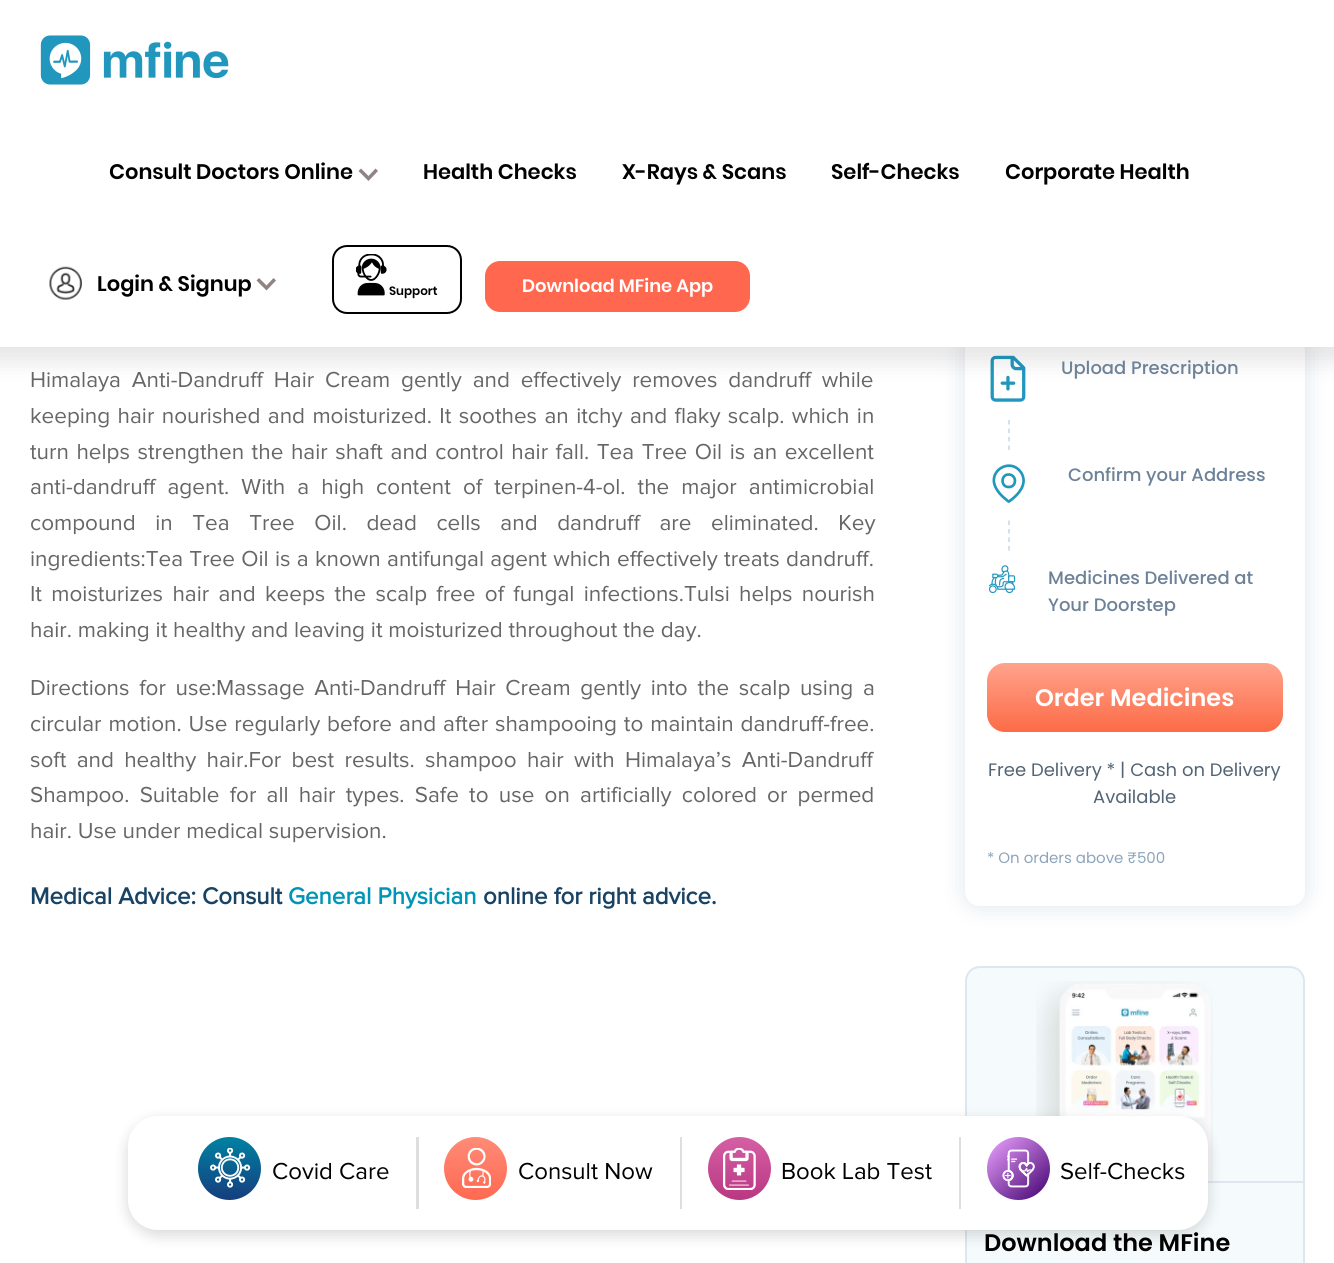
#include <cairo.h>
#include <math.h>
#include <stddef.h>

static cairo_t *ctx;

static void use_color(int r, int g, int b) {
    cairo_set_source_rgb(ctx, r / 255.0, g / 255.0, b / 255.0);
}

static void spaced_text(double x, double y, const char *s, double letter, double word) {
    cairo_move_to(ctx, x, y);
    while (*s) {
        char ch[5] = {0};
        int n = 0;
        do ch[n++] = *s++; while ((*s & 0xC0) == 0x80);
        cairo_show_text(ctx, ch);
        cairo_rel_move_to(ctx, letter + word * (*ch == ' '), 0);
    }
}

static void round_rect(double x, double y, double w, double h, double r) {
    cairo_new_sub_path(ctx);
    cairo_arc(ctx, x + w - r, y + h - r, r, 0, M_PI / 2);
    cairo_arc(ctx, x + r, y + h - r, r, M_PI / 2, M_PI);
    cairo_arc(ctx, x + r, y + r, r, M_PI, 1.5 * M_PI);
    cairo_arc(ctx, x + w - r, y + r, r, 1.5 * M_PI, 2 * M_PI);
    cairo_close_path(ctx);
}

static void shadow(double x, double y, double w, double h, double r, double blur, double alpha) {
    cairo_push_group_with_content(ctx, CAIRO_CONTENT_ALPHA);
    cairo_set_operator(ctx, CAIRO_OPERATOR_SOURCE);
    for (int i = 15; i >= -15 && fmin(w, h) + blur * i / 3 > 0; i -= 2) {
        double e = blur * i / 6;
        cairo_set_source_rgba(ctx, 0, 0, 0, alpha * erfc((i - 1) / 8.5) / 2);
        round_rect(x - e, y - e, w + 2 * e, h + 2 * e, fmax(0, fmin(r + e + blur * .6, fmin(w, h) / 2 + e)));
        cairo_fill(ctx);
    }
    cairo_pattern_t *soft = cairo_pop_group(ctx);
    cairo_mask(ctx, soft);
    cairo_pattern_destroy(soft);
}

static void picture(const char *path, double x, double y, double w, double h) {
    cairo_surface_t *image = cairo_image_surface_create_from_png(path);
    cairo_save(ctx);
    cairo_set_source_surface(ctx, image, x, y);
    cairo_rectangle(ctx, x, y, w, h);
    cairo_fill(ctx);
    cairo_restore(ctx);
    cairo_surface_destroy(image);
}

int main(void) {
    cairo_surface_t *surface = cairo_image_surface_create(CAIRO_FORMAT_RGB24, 1334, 1263);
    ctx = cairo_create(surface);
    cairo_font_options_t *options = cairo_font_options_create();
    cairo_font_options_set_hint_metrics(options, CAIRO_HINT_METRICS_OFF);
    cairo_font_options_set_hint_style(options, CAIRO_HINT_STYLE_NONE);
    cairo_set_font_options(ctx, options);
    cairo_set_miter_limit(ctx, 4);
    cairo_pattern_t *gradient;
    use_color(255, 255, 255);
    cairo_paint(ctx);
    use_color(132, 149, 166);
    shadow(965, 182, 340, 724, 15, 12, 0.25);
    use_color(255, 255, 255);
    round_rect(965, 182, 340, 724, 15);
    cairo_fill(ctx);
    picture("img4.png", 990, 355, 36, 47);
    use_color(0, 0, 0);
    shadow(-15, -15, 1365, 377, 0, 11, 0.1);
    use_color(255, 255, 255);
    cairo_rectangle(ctx, 0, 0, 1334, 347);
    cairo_fill(ctx);
    picture("img1.png", 40, 35, 189, 50);
    cairo_select_font_face(ctx, "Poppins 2 SemiBold", CAIRO_FONT_SLANT_NORMAL, CAIRO_FONT_WEIGHT_NORMAL);
    cairo_set_font_size(ctx, 21);
    use_color(0, 0, 0);
    cairo_move_to(ctx, 109, 179);
    cairo_show_text(ctx, "Consult Doctors Online");
    use_color(144, 132, 131);
    cairo_new_path(ctx);
    cairo_move_to(ctx, 358.5, 171);
    cairo_line_to(ctx, 361, 168.5);
    cairo_line_to(ctx, 368.5, 176);
    cairo_line_to(ctx, 375.5, 168.5);
    cairo_line_to(ctx, 378, 171);
    cairo_line_to(ctx, 368.5, 181);
    cairo_close_path(ctx);
    cairo_fill(ctx);
    use_color(0, 0, 0);
    cairo_move_to(ctx, 423, 179);
    cairo_show_text(ctx, "Health Checks");
    cairo_move_to(ctx, 622, 179);
    cairo_show_text(ctx, "X-Rays & Scans");
    cairo_move_to(ctx, 831, 179);
    cairo_show_text(ctx, "Self-Checks");
    cairo_move_to(ctx, 1005, 179);
    cairo_show_text(ctx, "Corporate Health");
    picture("img2.png", 49, 266, 33, 34);
    cairo_move_to(ctx, 97, 291);
    cairo_show_text(ctx, "Login & Signup");
    use_color(144, 132, 131);
    cairo_new_path(ctx);
    cairo_move_to(ctx, 256.5, 280.5);
    cairo_line_to(ctx, 259, 278);
    cairo_line_to(ctx, 266.5, 285.5);
    cairo_line_to(ctx, 273.5, 278);
    cairo_line_to(ctx, 276, 280.5);
    cairo_line_to(ctx, 266.5, 290.5);
    cairo_close_path(ctx);
    cairo_fill(ctx);
    round_rect(333, 246, 128, 67, 14);
    use_color(0, 0, 0);
    cairo_stroke(ctx);
    picture("img3.png", 356, 254, 31, 42);
    cairo_set_font_size(ctx, 12);
    cairo_move_to(ctx, 389, 295);
    cairo_show_text(ctx, "Support");
    use_color(255, 103, 78);
    round_rect(485, 261, 265, 51, 15);
    cairo_fill(ctx);
    cairo_set_font_size(ctx, 18);
    use_color(255, 255, 255);
    cairo_move_to(ctx, 522, 292);
    cairo_show_text(ctx, "Download MFine App");
    cairo_select_font_face(ctx, "Proxima Nova", CAIRO_FONT_SLANT_NORMAL, CAIRO_FONT_WEIGHT_NORMAL);
    cairo_set_font_size(ctx, 22.5);
    use_color(102, 102, 102);
    spaced_text(30, 387, "Himalaya Anti-Dandruff Hair Cream gently and effectively removes dandruff while", 0, 5);
    spaced_text(30, 423, "keeping hair nourished and moisturized. It soothes an itchy and flaky scalp. which in", 0, 1.6);
    spaced_text(30, 459, "turn helps strengthen the hair shaft and control hair fall. Tea Tree Oil is an excellent", 0, 1.75);
    spaced_text(30, 494, "anti-dandruff agent. With a high content of terpinen-4-ol. the major antimicrobial", 0, 6.25);
    spaced_text(30, 530, "compound in Tea Tree Oil. dead cells and dandruff are eliminated. Key", 0, 13.75);
    spaced_text(30, 566, "ingredients:Tea Tree Oil is a known antifungal agent which effectively treats dandruff.", 0, 0.5);
    spaced_text(30, 601, "It moisturizes hair and keeps the scalp free of fungal infections.Tulsi helps nourish", 0, 3.5);
    cairo_move_to(ctx, 30, 637);
    cairo_show_text(ctx, "hair. making it healthy and leaving it moisturized throughout the day.");
    spaced_text(30, 695, "Directions for use:Massage Anti-Dandruff Hair Cream gently into the scalp using a", 0, 3.9);
    spaced_text(30, 731, "circular motion. Use regularly before and after shampooing to maintain dandruff-free.", 0, 1.1);
    spaced_text(30, 767, "soft and healthy hair.For best results. shampoo hair with Himalaya’s Anti-Dandruff", 0, 4.5);
    spaced_text(30, 802, "Shampoo. Suitable for all hair types. Safe to use on artificially colored or permed", 0, 4.4);
    cairo_move_to(ctx, 30, 838);
    cairo_show_text(ctx, "hair. Use under medical supervision.");
    cairo_select_font_face(ctx, "Proxima Nova", CAIRO_FONT_SLANT_NORMAL, CAIRO_FONT_WEIGHT_BOLD);
    cairo_set_font_size(ctx, 24);
    use_color(24, 67, 101);
    cairo_move_to(ctx, 30, 904);
    cairo_show_text(ctx, "Medical Advice: Consult");
    use_color(0, 149, 182);
    cairo_move_to(ctx, 288, 904);
    cairo_show_text(ctx, "General Physician");
    use_color(24, 67, 101);
    cairo_move_to(ctx, 483, 904);
    cairo_show_text(ctx, "online for right advice.");
    cairo_new_path(ctx);
    cairo_move_to(ctx, 1009, 420);
    cairo_line_to(ctx, 1009, 450);
    use_color(198, 214, 230);
    cairo_set_line_width(ctx, 1.5);
    cairo_set_dash(ctx, (double[]){4.5, 4}, 2, 0);
    cairo_stroke(ctx);
    cairo_select_font_face(ctx, "Poppins Medium", CAIRO_FONT_SLANT_NORMAL, CAIRO_FONT_WEIGHT_NORMAL);
    cairo_set_font_size(ctx, 18);
    use_color(109, 130, 152);
    cairo_move_to(ctx, 1061, 374);
    cairo_show_text(ctx, "Upload Prescription");
    cairo_new_path(ctx);
    cairo_move_to(ctx, 1008.5, 501.5);
    cairo_curve_to(ctx, 1002.5, 497, 995.5, 490.5, 994, 482.5);
    cairo_curve_to(ctx, 992, 469.5, 1008, 460.5, 1018, 469);
    cairo_curve_to(ctx, 1021, 471.5, 1023, 475, 1023.5, 479);
    cairo_curve_to(ctx, 1024.5, 488.5, 1016, 496.5, 1009, 501.5);
    cairo_close_path(ctx);
    cairo_move_to(ctx, 1008.5, 474.5);
    cairo_curve_to(ctx, 1000.5, 474.5, 1000.5, 487.5, 1009, 487);
    cairo_curve_to(ctx, 1017, 487, 1017, 474.5, 1008.5, 474.5);
    cairo_close_path(ctx);
    use_color(34, 151, 190);
    cairo_set_line_width(ctx, 2.7);
    cairo_set_line_cap(ctx, CAIRO_LINE_CAP_ROUND);
    cairo_set_line_join(ctx, CAIRO_LINE_JOIN_ROUND);
    cairo_set_dash(ctx, NULL, 0, 0);
    cairo_stroke(ctx);
    cairo_new_path(ctx);
    cairo_move_to(ctx, 1009, 520.5);
    cairo_line_to(ctx, 1009, 550.5);
    use_color(198, 214, 230);
    cairo_set_line_width(ctx, 1.5);
    cairo_set_line_cap(ctx, CAIRO_LINE_CAP_BUTT);
    cairo_set_line_join(ctx, CAIRO_LINE_JOIN_MITER);
    cairo_set_dash(ctx, (double[]){4.5, 4}, 2, 0);
    cairo_stroke(ctx);
    use_color(109, 130, 152);
    cairo_move_to(ctx, 1068, 481);
    cairo_show_text(ctx, "Confirm your Address");
    picture("img5.png", 988, 565, 28, 29);
    cairo_move_to(ctx, 1048, 584);
    cairo_show_text(ctx, "Medicines Delivered at");
    cairo_move_to(ctx, 1048, 611);
    cairo_show_text(ctx, "Your Doorstep");
    gradient = cairo_pattern_create_linear(1135, 663, 1135, 732);
    cairo_pattern_add_color_stop_rgba(gradient, 0, 1, 0.639, 0.549, 1);
    cairo_pattern_add_color_stop_rgba(gradient, 1, 0.988, 0.42, 0.278, 1);
    cairo_set_source(ctx, gradient);
    cairo_pattern_destroy(gradient);
    round_rect(987, 663, 296, 69, 18);
    cairo_fill(ctx);
    cairo_select_font_face(ctx, "Poppins SemiBold", CAIRO_FONT_SLANT_NORMAL, CAIRO_FONT_WEIGHT_NORMAL);
    cairo_set_font_size(ctx, 24);
    use_color(255, 255, 255);
    cairo_move_to(ctx, 1035, 706);
    cairo_show_text(ctx, "Order Medicines");
    cairo_select_font_face(ctx, "Poppins", CAIRO_FONT_SLANT_NORMAL, CAIRO_FONT_WEIGHT_NORMAL);
    cairo_set_font_size(ctx, 18);
    use_color(83, 100, 116);
    cairo_move_to(ctx, 988, 776);
    cairo_show_text(ctx, "Free Delivery * | Cash on Delivery");
    cairo_move_to(ctx, 1093, 803);
    cairo_show_text(ctx, "Available");
    cairo_set_font_size(ctx, 15);
    use_color(142, 164, 187);
    cairo_move_to(ctx, 987, 863);
    cairo_show_text(ctx, "* On orders above ₹500");
    use_color(245, 251, 252);
    round_rect(966, 967, 338, 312, 14);
    cairo_fill_preserve(ctx);
    use_color(222, 230, 239);
    cairo_set_line_width(ctx, 2);
    cairo_set_dash(ctx, NULL, 0, 0);
    cairo_stroke(ctx);
    picture("img6.png", 1036, 981, 177, 200);
    cairo_rectangle(ctx, 1208, 1181, 96, 2);
    cairo_fill(ctx);
    cairo_select_font_face(ctx, "Poppins SemiBold", CAIRO_FONT_SLANT_NORMAL, CAIRO_FONT_WEIGHT_NORMAL);
    cairo_set_font_size(ctx, 24);
    use_color(0, 0, 0);
    cairo_move_to(ctx, 984, 1251);
    cairo_show_text(ctx, "Download the MFine");
    use_color(0, 0, 0);
    shadow(128, 1121, 1080, 114, 30, 7.5, 0.16);
    use_color(255, 255, 255);
    round_rect(128, 1116, 1080, 114, 30);
    cairo_fill(ctx);
    gradient = cairo_pattern_create_linear(230, 1137, 230, 1200);
    cairo_pattern_add_color_stop_rgba(gradient, 0, 0, 0.51, 0.635, 1);
    cairo_pattern_add_color_stop_rgba(gradient, 1, 0.086, 0.239, 0.494, 1);
    cairo_set_source(ctx, gradient);
    cairo_pattern_destroy(gradient);
    cairo_arc(ctx, 229.5, 1168.5, 31.5, 0, 2 * M_PI);
    cairo_fill(ctx);
    picture("img7.png", 210, 1148, 41, 40);
    cairo_select_font_face(ctx, "Proxima Nova", CAIRO_FONT_SLANT_NORMAL, CAIRO_FONT_WEIGHT_NORMAL);
    use_color(0, 0, 0);
    cairo_move_to(ctx, 272, 1179);
    cairo_show_text(ctx, "Covid Care");
    use_color(222, 222, 222);
    cairo_rectangle(ctx, 416, 1137, 3, 72);
    cairo_fill(ctx);
    gradient = cairo_pattern_create_linear(476, 1137, 476, 1200);
    cairo_pattern_add_color_stop_rgba(gradient, 0, 1, 0.545, 0.467, 1);
    cairo_pattern_add_color_stop_rgba(gradient, 1, 1, 0.412, 0.314, 1);
    cairo_set_source(ctx, gradient);
    cairo_pattern_destroy(gradient);
    cairo_arc(ctx, 475.5, 1168.5, 31.5, 0, 2 * M_PI);
    cairo_fill(ctx);
    picture("img8.png", 462, 1148, 29, 40);
    use_color(0, 0, 0);
    cairo_move_to(ctx, 518, 1179);
    cairo_show_text(ctx, "Consult Now");
    use_color(222, 222, 222);
    cairo_rectangle(ctx, 680, 1137, 2, 72);
    cairo_fill(ctx);
    gradient = cairo_pattern_create_linear(740, 1137, 740, 1200);
    cairo_pattern_add_color_stop_rgba(gradient, 0, 0.839, 0.373, 0.643, 1);
    cairo_pattern_add_color_stop_rgba(gradient, 1, 0.722, 0.22, 0.51, 1);
    cairo_set_source(ctx, gradient);
    cairo_pattern_destroy(gradient);
    cairo_arc(ctx, 739.5, 1168.5, 31.5, 0, 2 * M_PI);
    cairo_fill(ctx);
    picture("img9.png", 723, 1148, 33, 42);
    use_color(0, 0, 0);
    cairo_move_to(ctx, 781, 1179);
    cairo_show_text(ctx, "Book Lab Test");
    use_color(222, 222, 222);
    cairo_rectangle(ctx, 959, 1137, 2, 72);
    cairo_fill(ctx);
    picture("img10.png", 987, 1137, 63, 63);
    use_color(0, 0, 0);
    cairo_move_to(ctx, 1060, 1179);
    cairo_show_text(ctx, "Self-Checks");
    cairo_surface_write_to_png(surface, "result.png");
    cairo_font_options_destroy(options);
    cairo_destroy(ctx);
    cairo_surface_destroy(surface);
    return 0;
}
